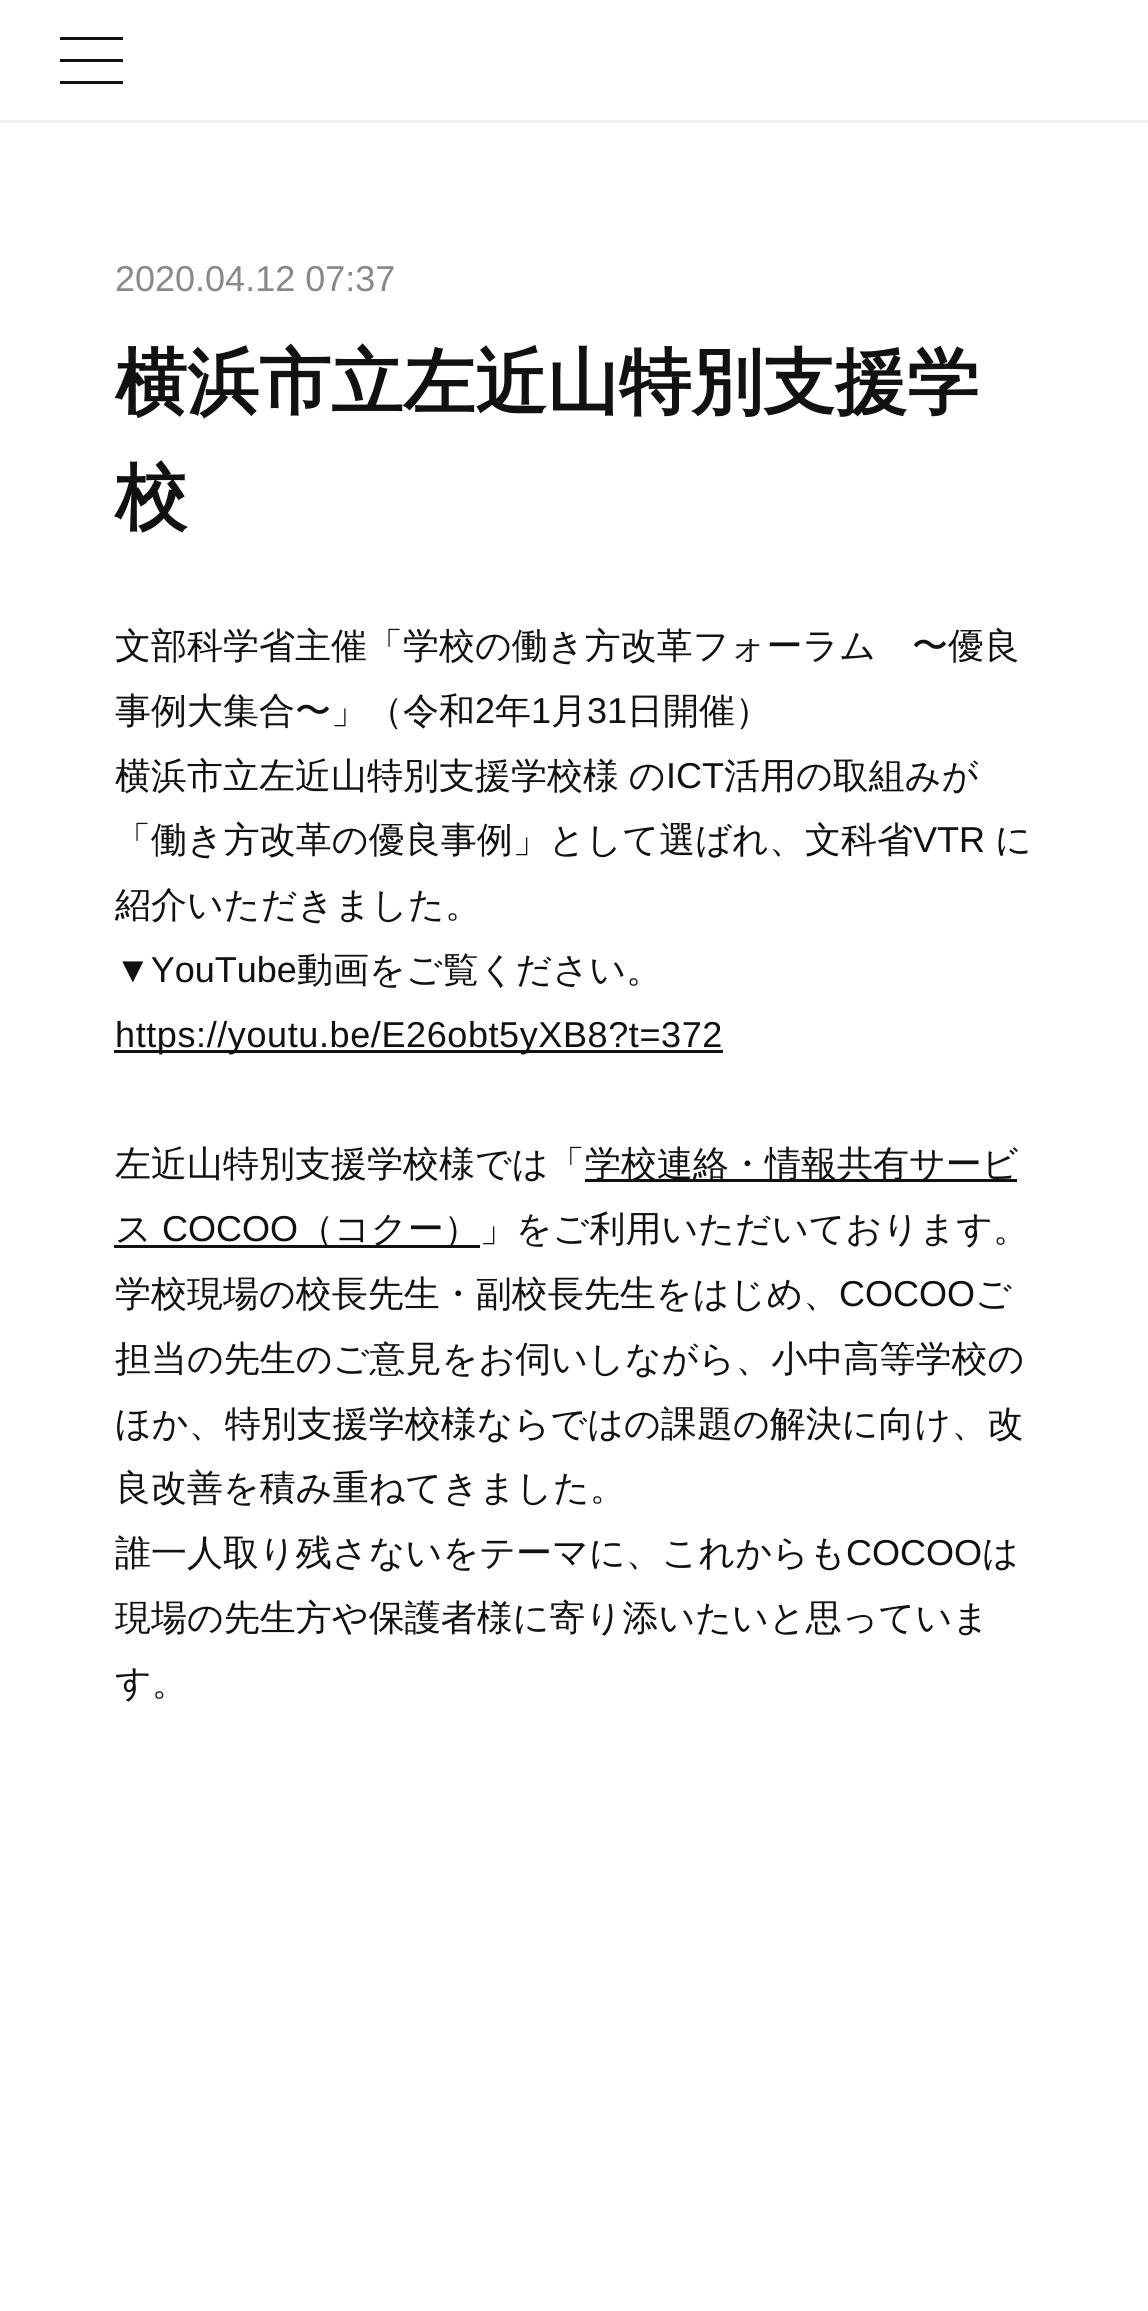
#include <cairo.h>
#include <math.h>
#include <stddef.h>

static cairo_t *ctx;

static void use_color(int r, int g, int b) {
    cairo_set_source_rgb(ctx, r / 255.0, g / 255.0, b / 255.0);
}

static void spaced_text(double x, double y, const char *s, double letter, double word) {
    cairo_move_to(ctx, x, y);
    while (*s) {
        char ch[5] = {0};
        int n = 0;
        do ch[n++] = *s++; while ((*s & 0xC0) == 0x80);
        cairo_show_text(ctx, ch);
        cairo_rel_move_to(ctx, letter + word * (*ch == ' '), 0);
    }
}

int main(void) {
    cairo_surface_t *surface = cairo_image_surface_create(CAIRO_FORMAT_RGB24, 1148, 2311);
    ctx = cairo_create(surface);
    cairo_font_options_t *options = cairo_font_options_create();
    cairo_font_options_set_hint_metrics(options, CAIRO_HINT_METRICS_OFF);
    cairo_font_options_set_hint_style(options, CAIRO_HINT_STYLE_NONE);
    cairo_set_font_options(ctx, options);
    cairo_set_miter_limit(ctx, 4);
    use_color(255, 255, 255);
    cairo_paint(ctx);
    use_color(238, 238, 238);
    cairo_rectangle(ctx, 0, 120, 1148, 3);
    cairo_fill(ctx);
    use_color(17, 17, 17);
    cairo_new_path(ctx);
    cairo_move_to(ctx, 123, 40);
    cairo_line_to(ctx, 60, 40);
    cairo_line_to(ctx, 60, 37);
    cairo_line_to(ctx, 123, 37);
    cairo_close_path(ctx);
    cairo_move_to(ctx, 123, 59);
    cairo_line_to(ctx, 123, 62);
    cairo_line_to(ctx, 60, 62);
    cairo_line_to(ctx, 60, 59);
    cairo_close_path(ctx);
    cairo_move_to(ctx, 123, 81);
    cairo_line_to(ctx, 123, 84);
    cairo_line_to(ctx, 60, 84);
    cairo_line_to(ctx, 60, 81);
    cairo_close_path(ctx);
    cairo_fill(ctx);
    cairo_select_font_face(ctx, "Liberation Sans", CAIRO_FONT_SLANT_NORMAL, CAIRO_FONT_WEIGHT_NORMAL);
    cairo_set_font_size(ctx, 36);
    use_color(136, 136, 136);
    cairo_move_to(ctx, 115, 291);
    cairo_show_text(ctx, "2020.04.12 07:37");
    cairo_select_font_face(ctx, "WenQuanYi Zen Hei", CAIRO_FONT_SLANT_NORMAL, CAIRO_FONT_WEIGHT_BOLD);
    cairo_set_font_size(ctx, 72);
    use_color(17, 17, 17);
    cairo_move_to(ctx, 115, 407);
    cairo_show_text(ctx, "横浜市立左近山特別支援学");
    cairo_move_to(ctx, 115, 522);
    cairo_show_text(ctx, "校");
    cairo_select_font_face(ctx, "WenQuanYi Zen Hei Medium", CAIRO_FONT_SLANT_NORMAL, CAIRO_FONT_WEIGHT_NORMAL);
    cairo_set_font_size(ctx, 36);
    cairo_move_to(ctx, 115, 658);
    cairo_show_text(ctx, "文部科学省主催「学校の働き方改革フォーラム　〜優良");
    cairo_move_to(ctx, 115, 723);
    cairo_show_text(ctx, "事例大集合〜」（令和");
    cairo_select_font_face(ctx, "Liberation Sans", CAIRO_FONT_SLANT_NORMAL, CAIRO_FONT_WEIGHT_NORMAL);
    cairo_move_to(ctx, 475, 723);
    cairo_show_text(ctx, "2");
    cairo_select_font_face(ctx, "WenQuanYi Zen Hei Medium", CAIRO_FONT_SLANT_NORMAL, CAIRO_FONT_WEIGHT_NORMAL);
    cairo_move_to(ctx, 495, 723);
    cairo_show_text(ctx, "年");
    cairo_select_font_face(ctx, "Liberation Sans", CAIRO_FONT_SLANT_NORMAL, CAIRO_FONT_WEIGHT_NORMAL);
    cairo_move_to(ctx, 531, 723);
    cairo_show_text(ctx, "1");
    cairo_select_font_face(ctx, "WenQuanYi Zen Hei Medium", CAIRO_FONT_SLANT_NORMAL, CAIRO_FONT_WEIGHT_NORMAL);
    cairo_move_to(ctx, 551, 723);
    cairo_show_text(ctx, "月");
    cairo_select_font_face(ctx, "Liberation Sans", CAIRO_FONT_SLANT_NORMAL, CAIRO_FONT_WEIGHT_NORMAL);
    cairo_move_to(ctx, 587, 723);
    cairo_show_text(ctx, "31");
    cairo_select_font_face(ctx, "WenQuanYi Zen Hei Medium", CAIRO_FONT_SLANT_NORMAL, CAIRO_FONT_WEIGHT_NORMAL);
    cairo_move_to(ctx, 627, 723);
    cairo_show_text(ctx, "日開催）");
    spaced_text(115, 788, "横浜市立左近山特別支援学校様 の", 0, -1);
    cairo_select_font_face(ctx, "Liberation Sans", CAIRO_FONT_SLANT_NORMAL, CAIRO_FONT_WEIGHT_NORMAL);
    cairo_move_to(ctx, 666, 788);
    cairo_show_text(ctx, "ICT");
    cairo_select_font_face(ctx, "WenQuanYi Zen Hei Medium", CAIRO_FONT_SLANT_NORMAL, CAIRO_FONT_WEIGHT_NORMAL);
    cairo_move_to(ctx, 724, 788);
    cairo_show_text(ctx, "活用の取組みが");
    cairo_move_to(ctx, 115, 852);
    cairo_show_text(ctx, "「働き方改革の優良事例」として選ばれ、文科省");
    cairo_select_font_face(ctx, "Liberation Sans", CAIRO_FONT_SLANT_NORMAL, CAIRO_FONT_WEIGHT_NORMAL);
    cairo_move_to(ctx, 913, 852);
    cairo_show_text(ctx, "VTR");
    cairo_select_font_face(ctx, "WenQuanYi Zen Hei Medium", CAIRO_FONT_SLANT_NORMAL, CAIRO_FONT_WEIGHT_NORMAL);
    cairo_move_to(ctx, 995, 852);
    cairo_show_text(ctx, "に");
    cairo_move_to(ctx, 115, 917);
    cairo_show_text(ctx, "紹介いただきました。");
    cairo_select_font_face(ctx, "Liberation Sans", CAIRO_FONT_SLANT_NORMAL, CAIRO_FONT_WEIGHT_NORMAL);
    cairo_move_to(ctx, 115, 982);
    cairo_show_text(ctx, "▼YouTube");
    cairo_select_font_face(ctx, "WenQuanYi Zen Hei Medium", CAIRO_FONT_SLANT_NORMAL, CAIRO_FONT_WEIGHT_NORMAL);
    cairo_move_to(ctx, 297, 982);
    cairo_show_text(ctx, "動画をご覧ください。");
    cairo_rectangle(ctx, 114, 1050, 609, 3);
    cairo_fill(ctx);
    cairo_select_font_face(ctx, "Liberation Sans", CAIRO_FONT_SLANT_NORMAL, CAIRO_FONT_WEIGHT_NORMAL);
    spaced_text(115, 1047, "https://youtu.be/E26obt5yXB8?t=372", 0.6, 0);
    cairo_select_font_face(ctx, "WenQuanYi Zen Hei Medium", CAIRO_FONT_SLANT_NORMAL, CAIRO_FONT_WEIGHT_NORMAL);
    cairo_move_to(ctx, 115, 1176);
    cairo_show_text(ctx, "左近山特別支援学校様では「");
    cairo_rectangle(ctx, 585, 1179, 432, 3);
    cairo_fill(ctx);
    cairo_move_to(ctx, 585, 1176);
    cairo_show_text(ctx, "学校連絡・情報共有サービ");
    cairo_move_to(ctx, 115, 1241);
    cairo_show_text(ctx, "ス");
    cairo_rectangle(ctx, 114, 1245, 366, 3);
    cairo_fill(ctx);
    cairo_select_font_face(ctx, "Liberation Sans", CAIRO_FONT_SLANT_NORMAL, CAIRO_FONT_WEIGHT_NORMAL);
    cairo_move_to(ctx, 162, 1241);
    cairo_show_text(ctx, "COCOO");
    cairo_select_font_face(ctx, "WenQuanYi Zen Hei Medium", CAIRO_FONT_SLANT_NORMAL, CAIRO_FONT_WEIGHT_NORMAL);
    cairo_move_to(ctx, 298, 1241);
    cairo_show_text(ctx, "（コクー）」をご利用いただいております。");
    cairo_move_to(ctx, 115, 1306);
    cairo_show_text(ctx, "学校現場の校長先生・副校長先生をはじめ、");
    cairo_select_font_face(ctx, "Liberation Sans", CAIRO_FONT_SLANT_NORMAL, CAIRO_FONT_WEIGHT_NORMAL);
    cairo_move_to(ctx, 839, 1306);
    cairo_show_text(ctx, "COCOO");
    cairo_select_font_face(ctx, "WenQuanYi Zen Hei Medium", CAIRO_FONT_SLANT_NORMAL, CAIRO_FONT_WEIGHT_NORMAL);
    cairo_move_to(ctx, 975, 1306);
    cairo_show_text(ctx, "ご");
    cairo_move_to(ctx, 115, 1371);
    cairo_show_text(ctx, "担当の先生のご意見をお伺いしながら、小中高等学校の");
    cairo_move_to(ctx, 115, 1436);
    cairo_show_text(ctx, "ほか、特別支援学校様ならではの課題の解決に向け、改");
    cairo_move_to(ctx, 115, 1500);
    cairo_show_text(ctx, "良改善を積み重ねてきました。");
    cairo_move_to(ctx, 115, 1565);
    cairo_show_text(ctx, "誰一人取り残さないをテーマに、これからも");
    cairo_select_font_face(ctx, "Liberation Sans", CAIRO_FONT_SLANT_NORMAL, CAIRO_FONT_WEIGHT_NORMAL);
    cairo_move_to(ctx, 846, 1565);
    cairo_show_text(ctx, "COCOO");
    cairo_select_font_face(ctx, "WenQuanYi Zen Hei Medium", CAIRO_FONT_SLANT_NORMAL, CAIRO_FONT_WEIGHT_NORMAL);
    cairo_move_to(ctx, 982, 1565);
    cairo_show_text(ctx, "は");
    cairo_move_to(ctx, 115, 1630);
    cairo_show_text(ctx, "現場の先生方や保護者様に寄り添いたいと思っていま");
    cairo_move_to(ctx, 115, 1695);
    cairo_show_text(ctx, "す。");
    cairo_surface_write_to_png(surface, "result.png");
    cairo_font_options_destroy(options);
    cairo_destroy(ctx);
    cairo_surface_destroy(surface);
    return 0;
}
